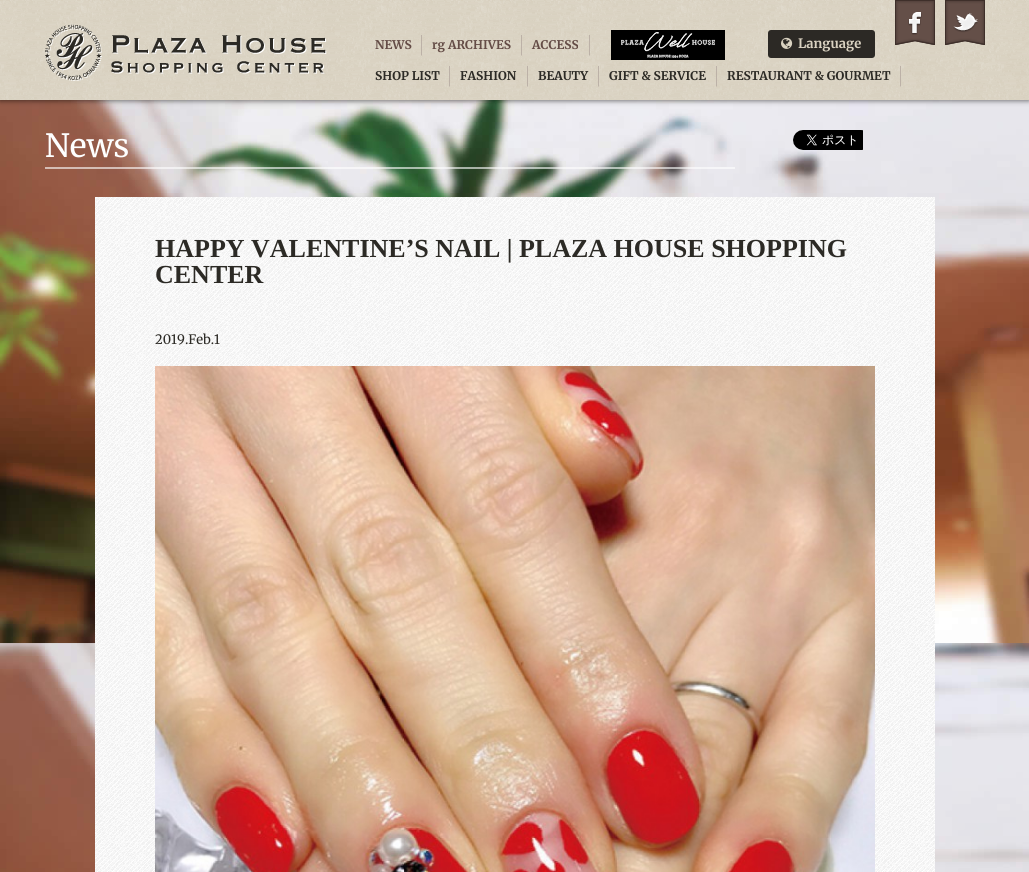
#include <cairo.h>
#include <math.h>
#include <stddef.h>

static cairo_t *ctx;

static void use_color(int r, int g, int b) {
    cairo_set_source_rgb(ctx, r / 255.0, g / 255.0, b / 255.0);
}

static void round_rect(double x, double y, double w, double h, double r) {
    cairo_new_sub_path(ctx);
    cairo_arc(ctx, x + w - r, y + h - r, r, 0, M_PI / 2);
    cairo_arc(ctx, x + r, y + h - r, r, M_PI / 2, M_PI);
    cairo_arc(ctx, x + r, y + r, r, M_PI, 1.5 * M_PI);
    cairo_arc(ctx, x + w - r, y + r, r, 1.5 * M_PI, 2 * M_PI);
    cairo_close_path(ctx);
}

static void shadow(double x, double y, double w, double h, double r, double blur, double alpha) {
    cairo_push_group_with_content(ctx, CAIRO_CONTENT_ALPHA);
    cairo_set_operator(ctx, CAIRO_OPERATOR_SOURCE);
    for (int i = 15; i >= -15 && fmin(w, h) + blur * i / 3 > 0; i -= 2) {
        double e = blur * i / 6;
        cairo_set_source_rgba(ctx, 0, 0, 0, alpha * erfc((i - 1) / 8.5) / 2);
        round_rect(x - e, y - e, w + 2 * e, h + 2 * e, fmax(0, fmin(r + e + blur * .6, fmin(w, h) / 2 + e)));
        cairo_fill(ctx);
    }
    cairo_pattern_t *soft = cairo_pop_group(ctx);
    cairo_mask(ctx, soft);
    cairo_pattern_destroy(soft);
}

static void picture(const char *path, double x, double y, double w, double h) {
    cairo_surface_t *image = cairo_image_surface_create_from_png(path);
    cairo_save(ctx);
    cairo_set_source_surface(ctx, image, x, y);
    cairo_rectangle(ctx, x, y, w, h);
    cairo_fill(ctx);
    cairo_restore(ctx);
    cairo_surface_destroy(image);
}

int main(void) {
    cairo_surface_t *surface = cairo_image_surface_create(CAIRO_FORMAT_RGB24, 1029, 872);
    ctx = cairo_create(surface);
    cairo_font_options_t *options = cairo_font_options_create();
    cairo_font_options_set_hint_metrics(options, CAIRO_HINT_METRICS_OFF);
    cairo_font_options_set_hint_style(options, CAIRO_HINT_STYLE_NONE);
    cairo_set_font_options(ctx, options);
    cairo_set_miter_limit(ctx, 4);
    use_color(255, 255, 255);
    cairo_paint(ctx);
    picture("img1.png", 0, 100, 1029, 772);
    use_color(0, 0, 0);
    shadow(0, 1, 1029, 100, 0, 2.5, 0.5);
    picture("img2.png", 0, 0, 1029, 100);
    picture("img3.png", 45, 24, 282, 57);
    use_color(188, 177, 167);
    cairo_new_path(ctx);
    cairo_move_to(ctx, 422, 35);
    cairo_line_to(ctx, 422, 56);
    cairo_line_to(ctx, 421, 55);
    cairo_line_to(ctx, 421, 35);
    cairo_close_path(ctx);
    cairo_fill(ctx);
    cairo_select_font_face(ctx, "Merriweather", CAIRO_FONT_SLANT_NORMAL, CAIRO_FONT_WEIGHT_BOLD);
    cairo_set_font_size(ctx, 12);
    use_color(100, 76, 70);
    cairo_move_to(ctx, 375, 49);
    cairo_show_text(ctx, "NEWS");
    use_color(188, 177, 167);
    cairo_new_path(ctx);
    cairo_move_to(ctx, 522, 35);
    cairo_line_to(ctx, 522, 56);
    cairo_line_to(ctx, 521, 55);
    cairo_line_to(ctx, 521, 35);
    cairo_close_path(ctx);
    cairo_fill(ctx);
    use_color(100, 76, 70);
    cairo_move_to(ctx, 432, 49);
    cairo_show_text(ctx, "rg ARCHIVES");
    use_color(188, 177, 167);
    cairo_new_path(ctx);
    cairo_move_to(ctx, 590, 35);
    cairo_line_to(ctx, 590, 56);
    cairo_line_to(ctx, 589, 55);
    cairo_line_to(ctx, 589, 35);
    cairo_close_path(ctx);
    cairo_fill(ctx);
    use_color(100, 76, 70);
    cairo_move_to(ctx, 532, 49);
    cairo_show_text(ctx, "ACCESS");
    use_color(0, 0, 0);
    cairo_rectangle(ctx, 611, 30, 114, 30);
    cairo_fill(ctx);
    picture("img4.png", 621, 32, 94, 26);
    use_color(44, 41, 37);
    round_rect(768, 30, 107, 28, 3);
    cairo_fill(ctx);
    picture("img5.png", 781, 37, 12, 12);
    cairo_set_font_size(ctx, 13);
    use_color(218, 210, 193);
    cairo_move_to(ctx, 798, 48);
    cairo_show_text(ctx, "Language");
    picture("img6.png", 895, 0, 40, 45);
    picture("img7.png", 945, 0, 40, 45);
    use_color(188, 177, 167);
    cairo_new_path(ctx);
    cairo_move_to(ctx, 450, 66);
    cairo_line_to(ctx, 450, 87);
    cairo_line_to(ctx, 449, 86);
    cairo_line_to(ctx, 449, 66);
    cairo_close_path(ctx);
    cairo_fill(ctx);
    cairo_set_font_size(ctx, 12);
    use_color(44, 42, 37);
    cairo_move_to(ctx, 375, 80);
    cairo_show_text(ctx, "SHOP LIST");
    use_color(188, 177, 167);
    cairo_new_path(ctx);
    cairo_move_to(ctx, 528, 66);
    cairo_line_to(ctx, 528, 87);
    cairo_line_to(ctx, 527, 86);
    cairo_line_to(ctx, 527, 66);
    cairo_close_path(ctx);
    cairo_fill(ctx);
    use_color(44, 42, 37);
    cairo_move_to(ctx, 460, 80);
    cairo_show_text(ctx, "FASHION");
    use_color(188, 177, 167);
    cairo_new_path(ctx);
    cairo_move_to(ctx, 599, 66);
    cairo_line_to(ctx, 599, 87);
    cairo_line_to(ctx, 598, 86);
    cairo_line_to(ctx, 598, 66);
    cairo_close_path(ctx);
    cairo_fill(ctx);
    use_color(44, 42, 37);
    cairo_move_to(ctx, 538, 80);
    cairo_show_text(ctx, "BEAUTY");
    use_color(188, 177, 167);
    cairo_new_path(ctx);
    cairo_move_to(ctx, 717, 66);
    cairo_line_to(ctx, 717, 87);
    cairo_line_to(ctx, 716, 86);
    cairo_line_to(ctx, 716, 66);
    cairo_close_path(ctx);
    cairo_fill(ctx);
    use_color(44, 42, 37);
    cairo_move_to(ctx, 609, 80);
    cairo_show_text(ctx, "GIFT & SERVICE");
    use_color(188, 177, 167);
    cairo_new_path(ctx);
    cairo_move_to(ctx, 901, 66);
    cairo_line_to(ctx, 901, 87);
    cairo_line_to(ctx, 900, 86);
    cairo_line_to(ctx, 900, 66);
    cairo_close_path(ctx);
    cairo_fill(ctx);
    use_color(44, 42, 37);
    cairo_move_to(ctx, 727, 80);
    cairo_show_text(ctx, "RESTAURANT & GOURMET");
    picture("img8.png", 793, 130, 70, 20);
    picture("img9.png", 95, 197, 840, 675);
    cairo_set_source_rgba(ctx, 1, 1, 1, 0.6);
    cairo_rectangle(ctx, 45, 167, 690, 2);
    cairo_fill(ctx);
    cairo_select_font_face(ctx, "Merriweather", CAIRO_FONT_SLANT_NORMAL, CAIRO_FONT_WEIGHT_NORMAL);
    cairo_set_font_size(ctx, 32);
    use_color(255, 255, 255);
    cairo_move_to(ctx, 45, 157);
    cairo_show_text(ctx, "News");
    cairo_select_font_face(ctx, "Liberation Serif", CAIRO_FONT_SLANT_NORMAL, CAIRO_FONT_WEIGHT_BOLD);
    cairo_set_font_size(ctx, 26);
    use_color(44, 42, 37);
    cairo_move_to(ctx, 155, 257);
    cairo_show_text(ctx, "HAPPY VALENTINE’S NAIL | PLAZA HOUSE SHOPPING");
    cairo_move_to(ctx, 155, 283);
    cairo_show_text(ctx, "CENTER");
    cairo_select_font_face(ctx, "Merriweather", CAIRO_FONT_SLANT_NORMAL, CAIRO_FONT_WEIGHT_NORMAL);
    cairo_set_font_size(ctx, 13);
    cairo_move_to(ctx, 155, 344);
    cairo_show_text(ctx, "2019.Feb.1");
    picture("img10.png", 155, 366, 720, 506);
    cairo_surface_write_to_png(surface, "result.png");
    cairo_font_options_destroy(options);
    cairo_destroy(ctx);
    cairo_surface_destroy(surface);
    return 0;
}
